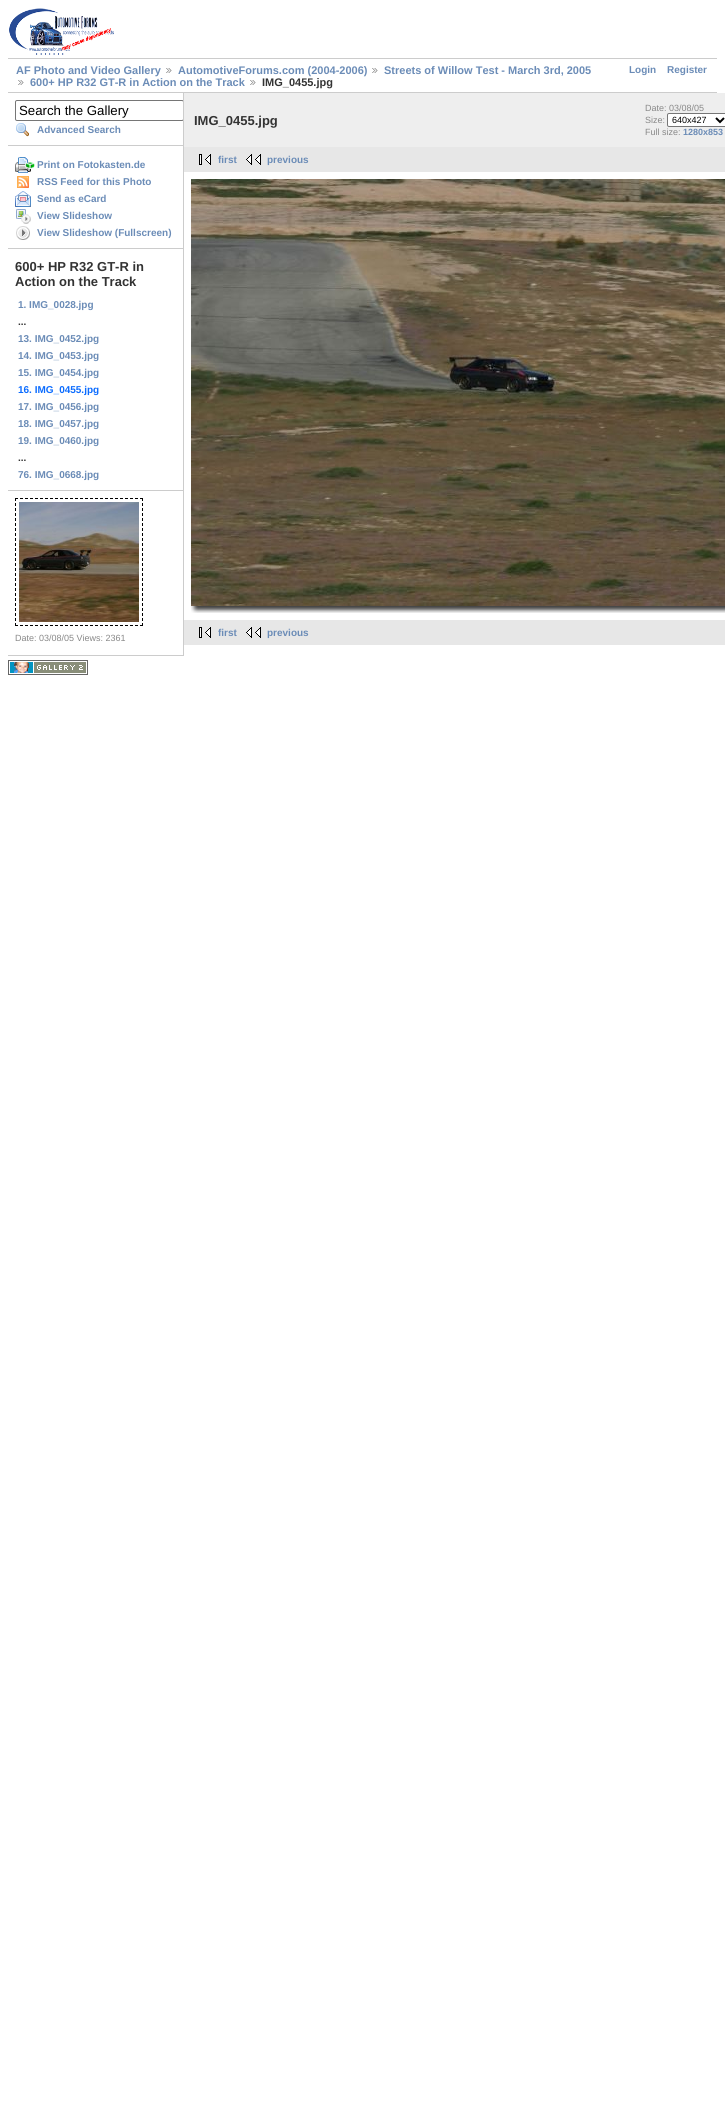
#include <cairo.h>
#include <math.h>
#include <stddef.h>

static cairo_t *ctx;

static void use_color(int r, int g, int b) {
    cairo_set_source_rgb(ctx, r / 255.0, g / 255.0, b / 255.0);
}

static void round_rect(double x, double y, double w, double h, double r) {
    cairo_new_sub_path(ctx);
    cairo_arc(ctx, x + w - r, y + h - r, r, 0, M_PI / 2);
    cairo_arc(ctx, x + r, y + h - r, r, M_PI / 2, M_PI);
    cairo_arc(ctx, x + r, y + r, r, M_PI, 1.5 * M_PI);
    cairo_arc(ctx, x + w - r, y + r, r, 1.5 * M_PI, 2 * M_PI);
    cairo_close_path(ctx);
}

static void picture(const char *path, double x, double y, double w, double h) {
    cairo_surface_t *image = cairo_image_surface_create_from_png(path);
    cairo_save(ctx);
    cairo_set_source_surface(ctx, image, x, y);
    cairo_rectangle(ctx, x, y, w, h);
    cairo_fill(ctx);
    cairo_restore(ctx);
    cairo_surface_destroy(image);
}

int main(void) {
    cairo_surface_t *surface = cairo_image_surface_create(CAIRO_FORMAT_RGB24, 725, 2114);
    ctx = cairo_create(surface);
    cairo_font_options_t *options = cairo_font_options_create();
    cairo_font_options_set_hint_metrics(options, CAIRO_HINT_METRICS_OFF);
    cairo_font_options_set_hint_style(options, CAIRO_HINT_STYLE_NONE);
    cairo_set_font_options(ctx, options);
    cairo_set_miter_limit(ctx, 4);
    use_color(255, 255, 255);
    cairo_paint(ctx);
    picture("img1.png", 9, 8, 105, 47);
    use_color(204, 204, 204);
    cairo_rectangle(ctx, 8, 58, 709, 1);
    cairo_fill(ctx);
    cairo_rectangle(ctx, 8, 92, 709, 1);
    cairo_fill(ctx);
    cairo_select_font_face(ctx, "Liberation Sans", CAIRO_FONT_SLANT_NORMAL, CAIRO_FONT_WEIGHT_BOLD);
    cairo_set_font_size(ctx, 11);
    use_color(107, 140, 183);
    cairo_move_to(ctx, 16, 74);
    cairo_show_text(ctx, "AF Photo and Video Gallery");
    picture("img2.png", 166, 68, 6, 5);
    cairo_move_to(ctx, 178, 74);
    cairo_show_text(ctx, "AutomotiveForums.com (2004-2006)");
    picture("img2.png", 372, 68, 6, 5);
    cairo_move_to(ctx, 384, 74);
    cairo_show_text(ctx, "Streets of Willow Test - March 3rd, 2005");
    picture("img2.png", 18, 80, 6, 5);
    cairo_move_to(ctx, 30, 86);
    cairo_show_text(ctx, "600+ HP R32 GT-R in Action on the Track");
    picture("img2.png", 250, 80, 6, 5);
    use_color(51, 51, 51);
    cairo_move_to(ctx, 262, 86);
    cairo_show_text(ctx, "IMG_0455.jpg");
    cairo_set_font_size(ctx, 10);
    use_color(107, 140, 183);
    cairo_move_to(ctx, 629, 73);
    cairo_show_text(ctx, "Login");
    cairo_move_to(ctx, 667, 73);
    cairo_show_text(ctx, "Register");
    use_color(204, 204, 204);
    cairo_rectangle(ctx, 183, 93, 1, 563);
    cairo_fill(ctx);
    cairo_rectangle(ctx, 8, 145, 175, 1);
    cairo_fill(ctx);
    cairo_save(ctx);
    cairo_rectangle(ctx, 8, 93, 175, 563);
    cairo_clip(ctx);
    round_rect(15.5, 100.5, 168, 20, 1.5);
    use_color(118, 118, 118);
    cairo_set_line_width(ctx, 1);
    cairo_stroke(ctx);
    cairo_restore(ctx);
    cairo_select_font_face(ctx, "Liberation Sans", CAIRO_FONT_SLANT_NORMAL, CAIRO_FONT_WEIGHT_NORMAL);
    cairo_set_font_size(ctx, 13.25);
    use_color(0, 0, 0);
    cairo_move_to(ctx, 19, 115);
    cairo_show_text(ctx, "Search the Gallery");
    picture("img3.png", 16, 123, 13, 14);
    cairo_select_font_face(ctx, "Liberation Sans", CAIRO_FONT_SLANT_NORMAL, CAIRO_FONT_WEIGHT_BOLD);
    cairo_set_font_size(ctx, 10);
    use_color(107, 140, 183);
    cairo_move_to(ctx, 37, 133);
    cairo_show_text(ctx, "Advanced Search");
    use_color(204, 204, 204);
    cairo_rectangle(ctx, 8, 248, 175, 1);
    cairo_fill(ctx);
    picture("img4.png", 15, 157, 20, 16);
    use_color(107, 140, 183);
    cairo_move_to(ctx, 37, 168);
    cairo_show_text(ctx, "Print on Fotokasten.de");
    picture("img5.png", 17, 176, 12, 12);
    cairo_move_to(ctx, 37, 185);
    cairo_show_text(ctx, "RSS Feed for this Photo");
    picture("img6.png", 15, 191, 16, 16);
    cairo_move_to(ctx, 37, 202);
    cairo_show_text(ctx, "Send as eCard");
    picture("img7.png", 16, 209, 15, 15);
    cairo_move_to(ctx, 37, 219);
    cairo_show_text(ctx, "View Slideshow");
    picture("img8.png", 16, 226, 14, 14);
    cairo_move_to(ctx, 37, 236);
    cairo_show_text(ctx, "View Slideshow (Fullscreen)");
    use_color(204, 204, 204);
    cairo_rectangle(ctx, 8, 490, 175, 1);
    cairo_fill(ctx);
    cairo_set_font_size(ctx, 13);
    use_color(51, 51, 51);
    cairo_move_to(ctx, 15, 271);
    cairo_show_text(ctx, "600+ HP R32 GT-R in");
    cairo_move_to(ctx, 15, 286);
    cairo_show_text(ctx, "Action on the Track");
    cairo_set_font_size(ctx, 10);
    use_color(107, 140, 183);
    cairo_move_to(ctx, 18, 308);
    cairo_show_text(ctx, "1. IMG_0028.jpg");
    use_color(51, 51, 51);
    cairo_move_to(ctx, 18, 325);
    cairo_show_text(ctx, "...");
    use_color(107, 140, 183);
    cairo_move_to(ctx, 18, 342);
    cairo_show_text(ctx, "13. IMG_0452.jpg");
    cairo_move_to(ctx, 18, 359);
    cairo_show_text(ctx, "14. IMG_0453.jpg");
    cairo_move_to(ctx, 18, 376);
    cairo_show_text(ctx, "15. IMG_0454.jpg");
    use_color(11, 108, 255);
    cairo_move_to(ctx, 18, 393);
    cairo_show_text(ctx, "16. IMG_0455.jpg");
    use_color(107, 140, 183);
    cairo_move_to(ctx, 18, 410);
    cairo_show_text(ctx, "17. IMG_0456.jpg");
    cairo_move_to(ctx, 18, 427);
    cairo_show_text(ctx, "18. IMG_0457.jpg");
    cairo_move_to(ctx, 18, 444);
    cairo_show_text(ctx, "19. IMG_0460.jpg");
    use_color(51, 51, 51);
    cairo_move_to(ctx, 18, 461);
    cairo_show_text(ctx, "...");
    use_color(107, 140, 183);
    cairo_move_to(ctx, 18, 478);
    cairo_show_text(ctx, "76. IMG_0668.jpg");
    use_color(204, 204, 204);
    cairo_rectangle(ctx, 8, 655, 175, 1);
    cairo_fill(ctx);
    cairo_new_path(ctx);
    cairo_move_to(ctx, 15, 498.5);
    cairo_line_to(ctx, 143, 498.5);
    use_color(0, 0, 0);
    cairo_set_line_width(ctx, 1);
    cairo_set_dash(ctx, (double[]){3, 2}, 2, 0);
    cairo_stroke(ctx);
    cairo_new_path(ctx);
    cairo_move_to(ctx, 142.5, 498);
    cairo_line_to(ctx, 142.5, 626);
    cairo_stroke(ctx);
    cairo_new_path(ctx);
    cairo_move_to(ctx, 15, 625.5);
    cairo_line_to(ctx, 143, 625.5);
    cairo_stroke(ctx);
    cairo_new_path(ctx);
    cairo_move_to(ctx, 15.5, 498);
    cairo_line_to(ctx, 15.5, 626);
    cairo_stroke(ctx);
    picture("img9.png", 19, 502, 120, 120);
    cairo_select_font_face(ctx, "Liberation Sans", CAIRO_FONT_SLANT_NORMAL, CAIRO_FONT_WEIGHT_NORMAL);
    cairo_set_font_size(ctx, 9);
    use_color(136, 136, 136);
    cairo_move_to(ctx, 15, 641);
    cairo_show_text(ctx, "Date: 03/08/05 Views: 2361");
    use_color(238, 238, 238);
    cairo_rectangle(ctx, 184, 93, 541, 54);
    cairo_fill(ctx);
    cairo_select_font_face(ctx, "Liberation Sans", CAIRO_FONT_SLANT_NORMAL, CAIRO_FONT_WEIGHT_BOLD);
    cairo_set_font_size(ctx, 13);
    use_color(51, 51, 51);
    cairo_move_to(ctx, 194, 125);
    cairo_show_text(ctx, "IMG_0455.jpg");
    cairo_select_font_face(ctx, "Liberation Sans", CAIRO_FONT_SLANT_NORMAL, CAIRO_FONT_WEIGHT_NORMAL);
    cairo_set_font_size(ctx, 9);
    use_color(136, 136, 136);
    cairo_move_to(ctx, 645, 111);
    cairo_show_text(ctx, "Date: 03/08/05");
    cairo_move_to(ctx, 645, 123);
    cairo_show_text(ctx, "Size:");
    use_color(255, 255, 255);
    round_rect(667.5, 113.5, 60, 13, 1.5);
    cairo_fill_preserve(ctx);
    use_color(118, 118, 118);
    cairo_set_dash(ctx, NULL, 0, 0);
    cairo_stroke(ctx);
    cairo_new_path(ctx);
    cairo_move_to(ctx, 716, 118);
    cairo_line_to(ctx, 720, 122);
    cairo_line_to(ctx, 724, 118);
    use_color(0, 0, 0);
    cairo_set_line_width(ctx, 2);
    cairo_stroke(ctx);
    cairo_move_to(ctx, 672, 123);
    cairo_show_text(ctx, "640x427");
    use_color(136, 136, 136);
    cairo_move_to(ctx, 645, 135);
    cairo_show_text(ctx, "Full size:");
    cairo_select_font_face(ctx, "Liberation Sans", CAIRO_FONT_SLANT_NORMAL, CAIRO_FONT_WEIGHT_BOLD);
    use_color(107, 140, 183);
    cairo_move_to(ctx, 683, 135);
    cairo_show_text(ctx, "1280x853");
    use_color(231, 231, 231);
    cairo_rectangle(ctx, 184, 147, 541, 25);
    cairo_fill(ctx);
    picture("img10.png", 199, 154, 12, 11);
    cairo_set_font_size(ctx, 10);
    use_color(107, 140, 183);
    cairo_move_to(ctx, 218, 163);
    cairo_show_text(ctx, "first");
    picture("img11.png", 246, 154, 15, 11);
    cairo_move_to(ctx, 267, 163);
    cairo_show_text(ctx, "previous");
    picture("img12.png", 191, 179, 534, 427);
    picture("img13.png", 191, 606, 9, 7);
    picture("img14.png", 200, 606, 525, 7);
    use_color(231, 231, 231);
    cairo_rectangle(ctx, 184, 620, 541, 25);
    cairo_fill(ctx);
    picture("img10.png", 199, 627, 12, 11);
    use_color(107, 140, 183);
    cairo_move_to(ctx, 218, 636);
    cairo_show_text(ctx, "first");
    picture("img11.png", 246, 627, 15, 11);
    cairo_move_to(ctx, 267, 636);
    cairo_show_text(ctx, "previous");
    picture("img15.png", 8, 660, 80, 15);
    cairo_surface_write_to_png(surface, "result.png");
    cairo_font_options_destroy(options);
    cairo_destroy(ctx);
    cairo_surface_destroy(surface);
    return 0;
}
